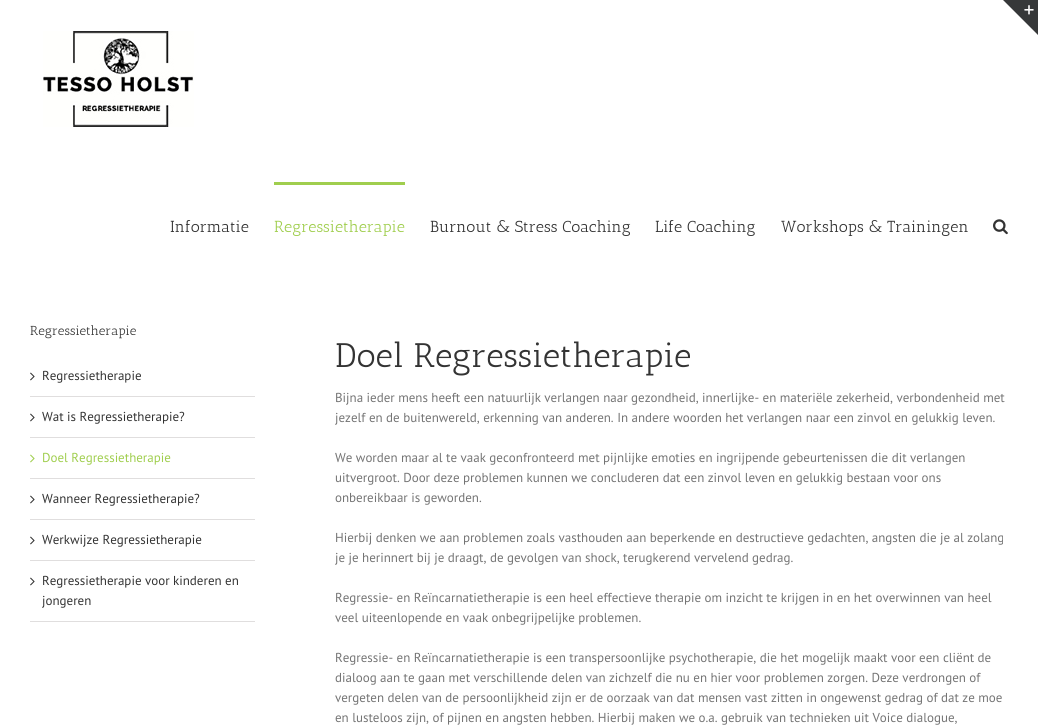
#include <cairo.h>
#include <math.h>
#include <stddef.h>

static cairo_t *ctx;

static void use_color(int r, int g, int b) {
    cairo_set_source_rgb(ctx, r / 255.0, g / 255.0, b / 255.0);
}

static void picture(const char *path, double x, double y, double w, double h) {
    cairo_surface_t *image = cairo_image_surface_create_from_png(path);
    cairo_save(ctx);
    cairo_set_source_surface(ctx, image, x, y);
    cairo_rectangle(ctx, x, y, w, h);
    cairo_fill(ctx);
    cairo_restore(ctx);
    cairo_surface_destroy(image);
}

int main(void) {
    cairo_surface_t *surface = cairo_image_surface_create(CAIRO_FORMAT_RGB24, 1038, 726);
    ctx = cairo_create(surface);
    cairo_font_options_t *options = cairo_font_options_create();
    cairo_font_options_set_hint_metrics(options, CAIRO_HINT_METRICS_OFF);
    cairo_font_options_set_hint_style(options, CAIRO_HINT_STYLE_NONE);
    cairo_set_font_options(ctx, options);
    cairo_set_miter_limit(ctx, 4);
    use_color(255, 255, 255);
    cairo_paint(ctx);
    use_color(54, 56, 57);
    cairo_new_path(ctx);
    cairo_move_to(ctx, 1003, 0);
    cairo_line_to(ctx, 1038, 0);
    cairo_line_to(ctx, 1038, 35);
    cairo_close_path(ctx);
    cairo_fill(ctx);
    picture("img1.png", 1024, 5, 10, 10);
    picture("img2.png", 43, 31, 151, 96);
    cairo_select_font_face(ctx, "Antic Slab", CAIRO_FONT_SLANT_NORMAL, CAIRO_FONT_WEIGHT_NORMAL);
    cairo_set_font_size(ctx, 16);
    use_color(51, 51, 51);
    cairo_move_to(ctx, 170, 232);
    cairo_show_text(ctx, "Informatie");
    use_color(160, 206, 78);
    cairo_rectangle(ctx, 274, 182, 131, 3);
    cairo_fill(ctx);
    cairo_move_to(ctx, 274, 232);
    cairo_show_text(ctx, "Regressietherapie");
    use_color(51, 51, 51);
    cairo_move_to(ctx, 430, 232);
    cairo_show_text(ctx, "Burnout & Stress Coaching");
    cairo_move_to(ctx, 655, 232);
    cairo_show_text(ctx, "Life Coaching");
    cairo_move_to(ctx, 781, 232);
    cairo_show_text(ctx, "Workshops & Trainingen");
    picture("img3.png", 993, 219, 15, 16);
    cairo_set_font_size(ctx, 13);
    cairo_move_to(ctx, 30, 335);
    cairo_show_text(ctx, "Regressietherapie");
    use_color(224, 222, 222);
    cairo_rectangle(ctx, 30, 396, 225, 1);
    cairo_fill(ctx);
    picture("img4.png", 30, 372, 5, 9);
    cairo_select_font_face(ctx, "PT Sans", CAIRO_FONT_SLANT_NORMAL, CAIRO_FONT_WEIGHT_NORMAL);
    use_color(51, 51, 51);
    cairo_move_to(ctx, 42, 380);
    cairo_show_text(ctx, "Regressietherapie");
    use_color(224, 222, 222);
    cairo_rectangle(ctx, 30, 437, 225, 1);
    cairo_fill(ctx);
    picture("img4.png", 30, 413, 5, 9);
    use_color(51, 51, 51);
    cairo_move_to(ctx, 42, 421);
    cairo_show_text(ctx, "Wat is Regressietherapie?");
    use_color(224, 222, 222);
    cairo_rectangle(ctx, 30, 478, 225, 1);
    cairo_fill(ctx);
    picture("img5.png", 30, 454, 5, 9);
    use_color(160, 206, 78);
    cairo_move_to(ctx, 42, 462);
    cairo_show_text(ctx, "Doel Regressietherapie");
    use_color(224, 222, 222);
    cairo_rectangle(ctx, 30, 519, 225, 1);
    cairo_fill(ctx);
    picture("img4.png", 30, 495, 5, 9);
    use_color(51, 51, 51);
    cairo_move_to(ctx, 42, 503);
    cairo_show_text(ctx, "Wanneer Regressietherapie?");
    use_color(224, 222, 222);
    cairo_rectangle(ctx, 30, 560, 225, 1);
    cairo_fill(ctx);
    picture("img4.png", 30, 536, 5, 9);
    use_color(51, 51, 51);
    cairo_move_to(ctx, 42, 544);
    cairo_show_text(ctx, "Werkwijze Regressietherapie");
    use_color(224, 222, 222);
    cairo_rectangle(ctx, 30, 621, 225, 1);
    cairo_fill(ctx);
    picture("img4.png", 30, 577, 5, 9);
    use_color(51, 51, 51);
    cairo_move_to(ctx, 42, 585);
    cairo_show_text(ctx, "Regressietherapie voor kinderen en");
    cairo_move_to(ctx, 42, 605);
    cairo_show_text(ctx, "jongeren");
    cairo_select_font_face(ctx, "Antic Slab", CAIRO_FONT_SLANT_NORMAL, CAIRO_FONT_WEIGHT_NORMAL);
    cairo_set_font_size(ctx, 34);
    cairo_move_to(ctx, 335, 367);
    cairo_show_text(ctx, "Doel Regressietherapie");
    cairo_select_font_face(ctx, "PT Sans", CAIRO_FONT_SLANT_NORMAL, CAIRO_FONT_WEIGHT_NORMAL);
    cairo_set_font_size(ctx, 13);
    use_color(116, 116, 116);
    cairo_move_to(ctx, 335, 402);
    cairo_show_text(ctx, "Bijna ieder mens heeft een natuurlijk verlangen naar gezondheid, innerlijke- en materiële zekerheid, verbondenheid met");
    cairo_move_to(ctx, 335, 422);
    cairo_show_text(ctx, "jezelf en de buitenwereld, erkenning van anderen. In andere woorden het verlangen naar een zinvol en gelukkig leven.");
    cairo_move_to(ctx, 335, 462);
    cairo_show_text(ctx, "We worden maar al te vaak geconfronteerd met pijnlijke emoties en ingrijpende gebeurtenissen die dit verlangen");
    cairo_move_to(ctx, 335, 482);
    cairo_show_text(ctx, "uitvergroot. Door deze problemen kunnen we concluderen dat een zinvol leven en gelukkig bestaan voor ons");
    cairo_move_to(ctx, 335, 502);
    cairo_show_text(ctx, "onbereikbaar is geworden.");
    cairo_move_to(ctx, 335, 542);
    cairo_show_text(ctx, "Hierbij denken we aan problemen zoals vasthouden aan beperkende en destructieve gedachten, angsten die je al zolang");
    cairo_move_to(ctx, 335, 562);
    cairo_show_text(ctx, "je je herinnert bij je draagt, de gevolgen van shock, terugkerend vervelend gedrag.");
    cairo_move_to(ctx, 335, 602);
    cairo_show_text(ctx, "Regressie- en Reïncarnatietherapie is een heel effectieve therapie om inzicht te krijgen in en het overwinnen van heel");
    cairo_move_to(ctx, 335, 622);
    cairo_show_text(ctx, "veel uiteenlopende en vaak onbegrijpelijke problemen.");
    cairo_move_to(ctx, 335, 662);
    cairo_show_text(ctx, "Regressie- en Reïncarnatietherapie is een transpersoonlijke psychotherapie, die het mogelijk maakt voor een cliënt de");
    cairo_move_to(ctx, 335, 682);
    cairo_show_text(ctx, "dialoog aan te gaan met verschillende delen van zichzelf die nu en hier voor problemen zorgen. Deze verdrongen of");
    cairo_move_to(ctx, 335, 702);
    cairo_show_text(ctx, "vergeten delen van de persoonlijkheid zijn er de oorzaak van dat mensen vast zitten in ongewenst gedrag of dat ze moe");
    cairo_move_to(ctx, 335, 722);
    cairo_show_text(ctx, "en lusteloos zijn, of pijnen en angsten hebben. Hierbij maken we o.a. gebruik van technieken uit Voice dialogue,");
    cairo_surface_write_to_png(surface, "result.png");
    cairo_font_options_destroy(options);
    cairo_destroy(ctx);
    cairo_surface_destroy(surface);
    return 0;
}
